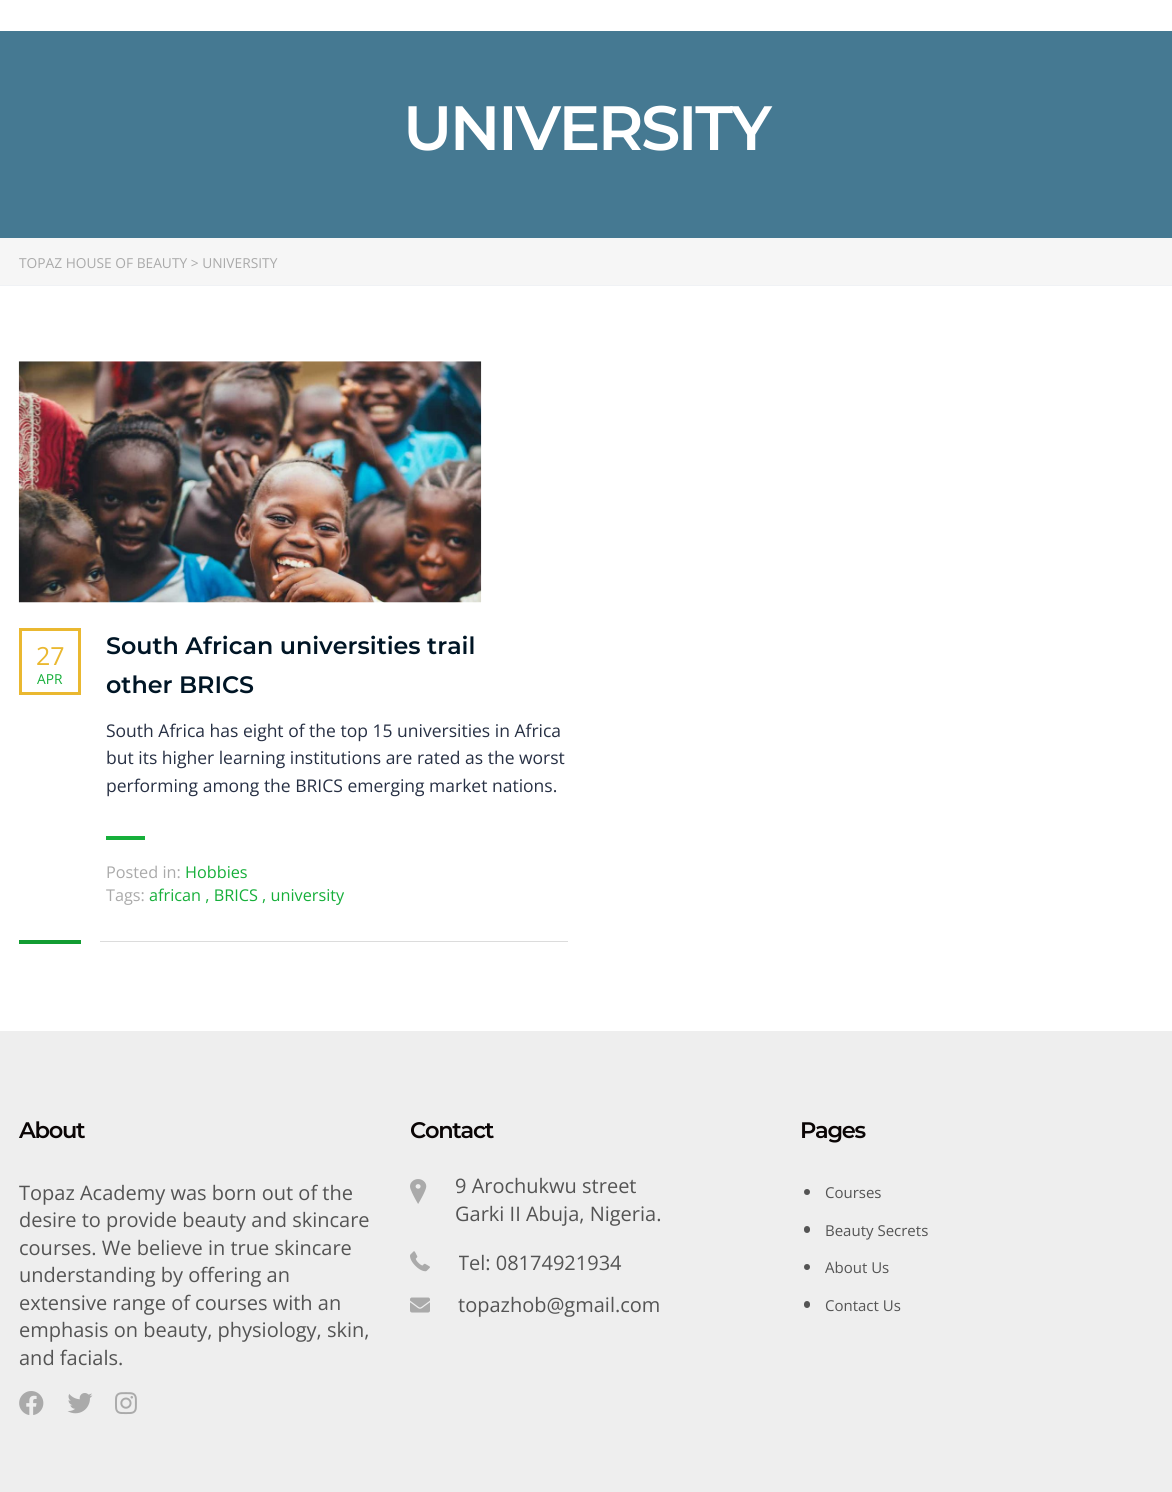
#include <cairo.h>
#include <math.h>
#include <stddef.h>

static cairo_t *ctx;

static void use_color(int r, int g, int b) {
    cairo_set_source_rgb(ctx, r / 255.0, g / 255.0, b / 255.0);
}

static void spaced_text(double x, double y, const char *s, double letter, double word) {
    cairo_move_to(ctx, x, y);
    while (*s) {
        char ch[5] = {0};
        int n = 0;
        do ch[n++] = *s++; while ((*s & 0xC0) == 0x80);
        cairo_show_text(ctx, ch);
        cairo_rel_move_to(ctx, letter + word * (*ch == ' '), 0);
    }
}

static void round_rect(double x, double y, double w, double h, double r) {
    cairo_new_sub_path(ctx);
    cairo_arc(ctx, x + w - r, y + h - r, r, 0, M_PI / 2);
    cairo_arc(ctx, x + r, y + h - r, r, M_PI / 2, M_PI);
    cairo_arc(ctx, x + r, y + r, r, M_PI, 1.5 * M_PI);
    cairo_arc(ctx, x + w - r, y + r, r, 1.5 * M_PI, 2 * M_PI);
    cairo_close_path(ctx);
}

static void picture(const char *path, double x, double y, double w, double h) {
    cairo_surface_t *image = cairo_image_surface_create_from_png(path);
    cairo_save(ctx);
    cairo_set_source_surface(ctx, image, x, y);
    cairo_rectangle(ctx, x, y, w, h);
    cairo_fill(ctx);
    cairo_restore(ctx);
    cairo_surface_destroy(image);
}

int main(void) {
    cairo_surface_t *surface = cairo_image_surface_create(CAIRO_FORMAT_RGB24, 1172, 1492);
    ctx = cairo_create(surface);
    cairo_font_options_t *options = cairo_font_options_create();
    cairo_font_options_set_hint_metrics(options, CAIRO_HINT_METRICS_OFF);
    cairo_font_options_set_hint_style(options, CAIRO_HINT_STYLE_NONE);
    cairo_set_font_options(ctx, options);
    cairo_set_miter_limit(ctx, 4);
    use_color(255, 255, 255);
    cairo_paint(ctx);
    use_color(69, 121, 146);
    cairo_rectangle(ctx, 0, 31, 1172, 207);
    cairo_fill(ctx);
    cairo_select_font_face(ctx, "Montserrat Thin", CAIRO_FONT_SLANT_NORMAL, CAIRO_FONT_WEIGHT_NORMAL);
    cairo_set_font_size(ctx, 62.5);
    use_color(255, 255, 255);
    spaced_text(403, 150, "UNIVERSITY", -2.5, 0);
    use_color(246, 246, 246);
    cairo_rectangle(ctx, 0, 238, 1172, 47);
    cairo_fill(ctx);
    use_color(240, 242, 245);
    cairo_rectangle(ctx, 0, 285, 1172, 1);
    cairo_fill(ctx);
    cairo_select_font_face(ctx, "Open Sans", CAIRO_FONT_SLANT_NORMAL, CAIRO_FONT_WEIGHT_NORMAL);
    cairo_set_font_size(ctx, 13.75);
    use_color(170, 170, 170);
    cairo_move_to(ctx, 19, 268);
    cairo_show_text(ctx, "TOPAZ HOUSE OF BEAUTY > UNIVERSITY");
    picture("img1.png", 18, 361, 464, 242);
    cairo_rectangle(ctx, 20.5, 629.5, 59, 64);
    use_color(234, 184, 48);
    cairo_set_line_width(ctx, 3);
    cairo_stroke(ctx);
    cairo_set_font_size(ctx, 25);
    cairo_move_to(ctx, 36, 665);
    cairo_show_text(ctx, "27");
    cairo_set_font_size(ctx, 13.75);
    use_color(22, 175, 58);
    cairo_move_to(ctx, 37, 684);
    cairo_show_text(ctx, "APR");
    cairo_select_font_face(ctx, "Montserrat Thin", CAIRO_FONT_SLANT_NORMAL, CAIRO_FONT_WEIGHT_NORMAL);
    cairo_set_font_size(ctx, 23.75);
    use_color(0, 21, 37);
    cairo_move_to(ctx, 106, 654);
    cairo_show_text(ctx, "South African universities trail");
    cairo_move_to(ctx, 106, 693);
    cairo_show_text(ctx, "other BRICS");
    cairo_select_font_face(ctx, "Open Sans", CAIRO_FONT_SLANT_NORMAL, CAIRO_FONT_WEIGHT_NORMAL);
    cairo_set_font_size(ctx, 17.5);
    use_color(39, 48, 68);
    cairo_move_to(ctx, 106, 737);
    cairo_show_text(ctx, "South Africa has eight of the top 15 universities in Africa");
    cairo_move_to(ctx, 106, 764);
    cairo_show_text(ctx, "but its higher learning institutions are rated as the worst");
    cairo_move_to(ctx, 106, 792);
    cairo_show_text(ctx, "performing among the BRICS emerging market nations.");
    use_color(22, 175, 58);
    cairo_rectangle(ctx, 106, 836, 39, 4);
    cairo_fill(ctx);
    cairo_set_font_size(ctx, 16.25);
    use_color(170, 170, 170);
    cairo_move_to(ctx, 106, 878);
    cairo_show_text(ctx, "Posted in:");
    use_color(22, 175, 58);
    cairo_move_to(ctx, 185, 878);
    cairo_show_text(ctx, "Hobbies");
    use_color(170, 170, 170);
    cairo_move_to(ctx, 106, 901);
    cairo_show_text(ctx, "Tags:");
    use_color(22, 175, 58);
    cairo_move_to(ctx, 149, 901);
    cairo_show_text(ctx, "african , BRICS , university");
    use_color(18, 156, 50);
    cairo_rectangle(ctx, 19, 940, 62, 4);
    cairo_fill(ctx);
    use_color(220, 220, 220);
    cairo_rectangle(ctx, 100, 941, 468, 1);
    cairo_fill(ctx);
    use_color(238, 238, 238);
    cairo_rectangle(ctx, 0, 1031, 1172, 461);
    cairo_fill(ctx);
    cairo_select_font_face(ctx, "Montserrat Thin", CAIRO_FONT_SLANT_NORMAL, CAIRO_FONT_WEIGHT_NORMAL);
    cairo_set_font_size(ctx, 22.5);
    use_color(10, 5, 5);
    spaced_text(19, 1138, "About", -1.25, 0);
    cairo_select_font_face(ctx, "Open Sans", CAIRO_FONT_SLANT_NORMAL, CAIRO_FONT_WEIGHT_NORMAL);
    cairo_set_font_size(ctx, 20);
    use_color(84, 84, 84);
    cairo_move_to(ctx, 19, 1200);
    cairo_show_text(ctx, "Topaz Academy was born out of the");
    cairo_move_to(ctx, 19, 1227);
    cairo_show_text(ctx, "desire to provide beauty and skincare");
    cairo_move_to(ctx, 19, 1255);
    cairo_show_text(ctx, "courses. We believe in true skincare");
    cairo_move_to(ctx, 19, 1282);
    cairo_show_text(ctx, "understanding by offering an");
    cairo_move_to(ctx, 19, 1310);
    cairo_show_text(ctx, "extensive range of courses with an");
    cairo_move_to(ctx, 19, 1337);
    cairo_show_text(ctx, "emphasis on beauty, physiology, skin,");
    cairo_move_to(ctx, 19, 1365);
    cairo_show_text(ctx, "and facials.");
    picture("img2.png", 19, 1391, 25, 24);
    picture("img3.png", 67, 1393, 26, 21);
    picture("img4.png", 115, 1392, 22, 23);
    cairo_select_font_face(ctx, "Montserrat Thin", CAIRO_FONT_SLANT_NORMAL, CAIRO_FONT_WEIGHT_NORMAL);
    cairo_set_font_size(ctx, 22.5);
    use_color(10, 5, 5);
    spaced_text(410, 1138, "Contact", -1.25, 0);
    picture("img5.png", 410, 1179, 17, 25);
    cairo_select_font_face(ctx, "Open Sans", CAIRO_FONT_SLANT_NORMAL, CAIRO_FONT_WEIGHT_NORMAL);
    cairo_set_font_size(ctx, 20);
    use_color(84, 84, 84);
    cairo_move_to(ctx, 455, 1193);
    cairo_show_text(ctx, "9 Arochukwu street");
    cairo_move_to(ctx, 455, 1221);
    cairo_show_text(ctx, "Garki II Abuja, Nigeria.");
    picture("img6.png", 410, 1251, 20, 21);
    cairo_save(ctx);
    cairo_rectangle(ctx, 459, 1249, 231, 27);
    cairo_clip(ctx);
    cairo_move_to(ctx, 458, 1270);
    cairo_show_text(ctx, "Tel: 08174921934");
    cairo_restore(ctx);
    picture("img7.png", 410, 1297, 20, 16);
    cairo_move_to(ctx, 458, 1312);
    cairo_show_text(ctx, "topazhob@gmail.com");
    cairo_select_font_face(ctx, "Montserrat Thin", CAIRO_FONT_SLANT_NORMAL, CAIRO_FONT_WEIGHT_NORMAL);
    cairo_set_font_size(ctx, 22.5);
    use_color(10, 5, 5);
    spaced_text(800, 1138, "Pages", -1.25, 0);
    use_color(84, 84, 84);
    cairo_new_path(ctx);
    cairo_arc(ctx, 807, 1192, 3, 0, 2 * M_PI);
    cairo_fill(ctx);
    cairo_select_font_face(ctx, "Open Sans", CAIRO_FONT_SLANT_NORMAL, CAIRO_FONT_WEIGHT_NORMAL);
    cairo_set_font_size(ctx, 15);
    cairo_move_to(ctx, 825, 1198);
    cairo_show_text(ctx, "Courses");
    round_rect(804, 1226, 6, 7, 3);
    cairo_fill(ctx);
    cairo_move_to(ctx, 825, 1236);
    cairo_show_text(ctx, "Beauty Secrets");
    cairo_new_path(ctx);
    cairo_arc(ctx, 807, 1267, 3, 0, 2 * M_PI);
    cairo_fill(ctx);
    cairo_move_to(ctx, 825, 1273);
    cairo_show_text(ctx, "About Us");
    round_rect(804, 1301, 6, 7, 3);
    cairo_fill(ctx);
    cairo_move_to(ctx, 825, 1311);
    cairo_show_text(ctx, "Contact Us");
    cairo_surface_write_to_png(surface, "result.png");
    cairo_font_options_destroy(options);
    cairo_destroy(ctx);
    cairo_surface_destroy(surface);
    return 0;
}
